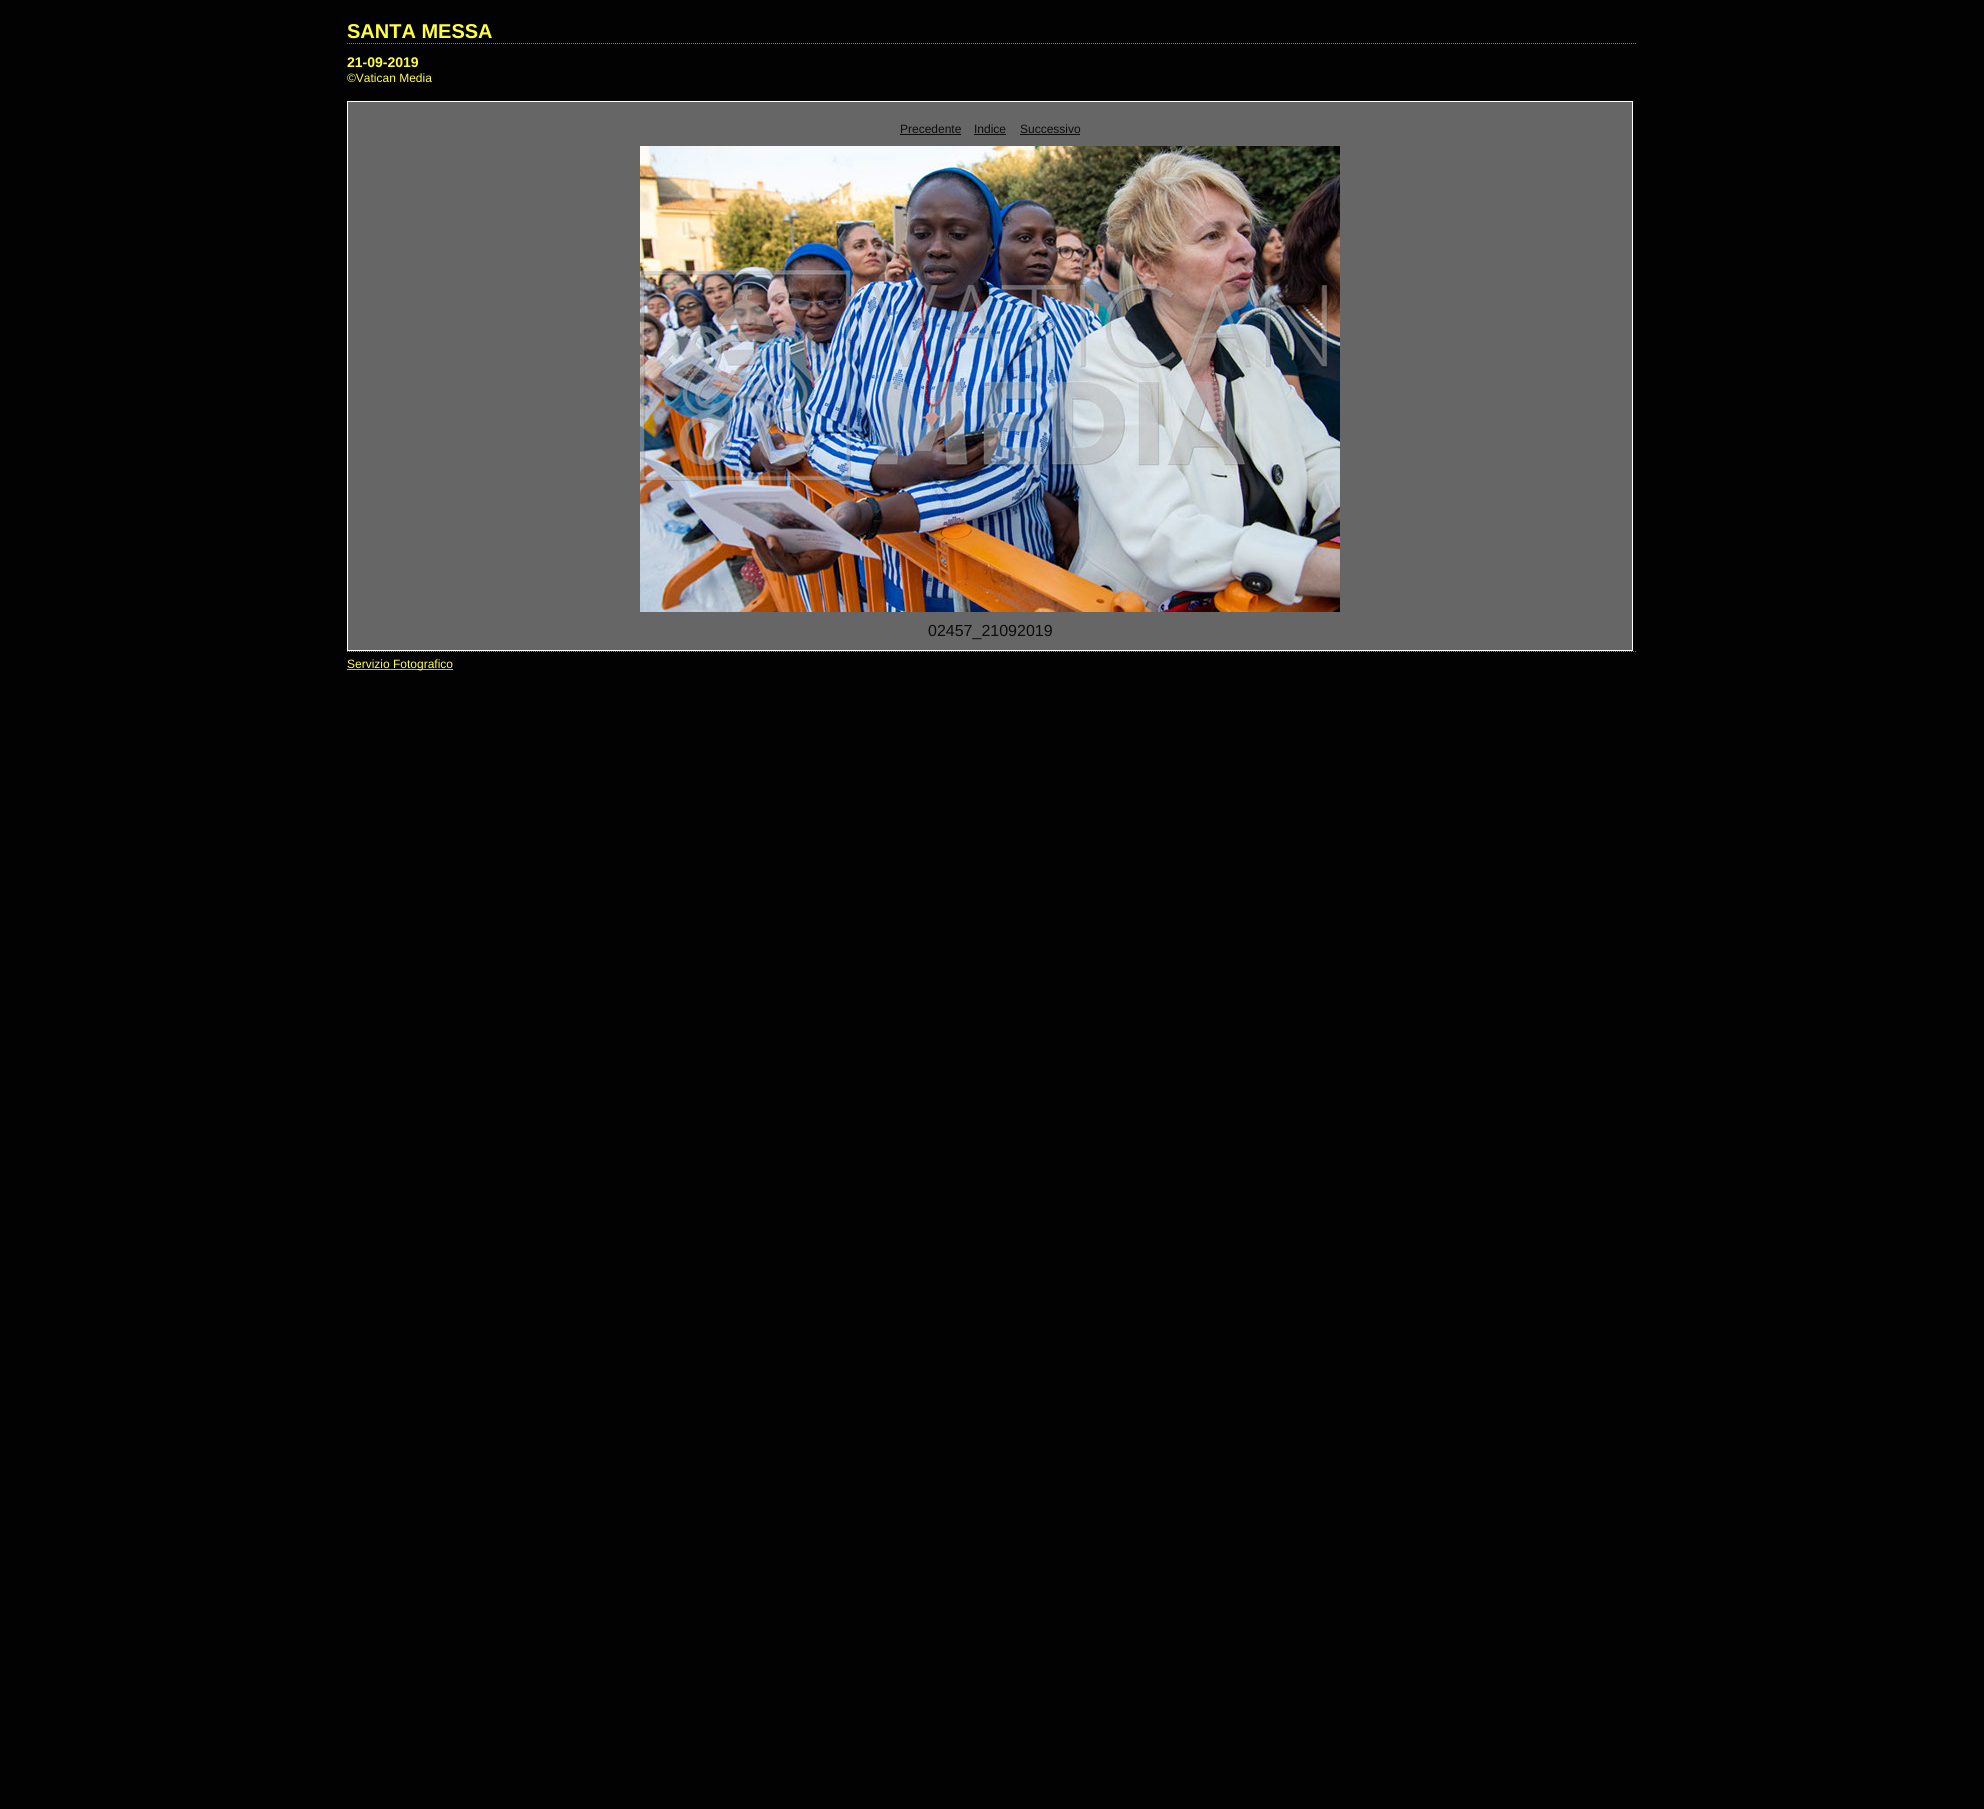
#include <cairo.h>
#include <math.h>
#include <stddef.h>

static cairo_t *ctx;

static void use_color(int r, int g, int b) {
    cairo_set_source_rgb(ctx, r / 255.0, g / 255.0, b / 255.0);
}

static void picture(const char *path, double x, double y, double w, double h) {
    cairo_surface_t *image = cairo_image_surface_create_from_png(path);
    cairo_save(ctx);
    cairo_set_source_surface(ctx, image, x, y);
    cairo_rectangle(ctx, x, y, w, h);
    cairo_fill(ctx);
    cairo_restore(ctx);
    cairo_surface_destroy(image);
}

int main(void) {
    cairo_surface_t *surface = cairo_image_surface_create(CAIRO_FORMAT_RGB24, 1984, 1809);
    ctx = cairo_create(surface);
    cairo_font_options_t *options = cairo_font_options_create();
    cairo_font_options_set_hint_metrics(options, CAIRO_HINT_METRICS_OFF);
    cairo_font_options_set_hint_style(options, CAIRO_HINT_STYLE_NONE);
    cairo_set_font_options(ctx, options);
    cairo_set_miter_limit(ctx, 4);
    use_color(2, 2, 2);
    cairo_paint(ctx);
    cairo_new_path(ctx);
    cairo_move_to(ctx, 347, 43.5);
    cairo_line_to(ctx, 1637, 43.5);
    use_color(127, 127, 127);
    cairo_set_line_width(ctx, 1);
    cairo_set_dash(ctx, (double[]){1, 1}, 2, 0);
    cairo_stroke(ctx);
    cairo_select_font_face(ctx, "Liberation Sans", CAIRO_FONT_SLANT_NORMAL, CAIRO_FONT_WEIGHT_BOLD);
    cairo_set_font_size(ctx, 20);
    use_color(255, 255, 66);
    cairo_move_to(ctx, 347, 38);
    cairo_show_text(ctx, "SANTA MESSA");
    cairo_set_font_size(ctx, 14);
    cairo_move_to(ctx, 347, 67);
    cairo_show_text(ctx, "21-09-2019");
    cairo_select_font_face(ctx, "Liberation Sans", CAIRO_FONT_SLANT_NORMAL, CAIRO_FONT_WEIGHT_NORMAL);
    cairo_set_font_size(ctx, 12);
    cairo_move_to(ctx, 347, 82);
    cairo_show_text(ctx, "©Vatican Media");
    use_color(102, 102, 102);
    cairo_rectangle(ctx, 347.5, 101.5, 1285, 549);
    cairo_fill_preserve(ctx);
    use_color(255, 255, 255);
    cairo_set_dash(ctx, NULL, 0, 0);
    cairo_stroke(ctx);
    use_color(12, 12, 12);
    cairo_move_to(ctx, 900, 133);
    cairo_show_text(ctx, "Precedente");
    cairo_rectangle(ctx, 900, 134, 61, 1);
    cairo_fill(ctx);
    cairo_move_to(ctx, 974, 133);
    cairo_show_text(ctx, "Indice");
    cairo_rectangle(ctx, 974, 134, 32, 1);
    cairo_fill(ctx);
    cairo_move_to(ctx, 1020, 133);
    cairo_show_text(ctx, "Successivo");
    cairo_rectangle(ctx, 1020, 134, 60, 1);
    cairo_fill(ctx);
    picture("img1.png", 640, 146, 700, 466);
    cairo_set_font_size(ctx, 16);
    cairo_move_to(ctx, 928, 636);
    cairo_show_text(ctx, "02457_21092019");
    cairo_new_path(ctx);
    cairo_move_to(ctx, 347, 651.5);
    cairo_line_to(ctx, 1637, 651.5);
    use_color(127, 127, 127);
    cairo_set_dash(ctx, (double[]){1, 1}, 2, 0);
    cairo_stroke(ctx);
    use_color(179, 179, 179);
    cairo_rectangle(ctx, 347, 669, 106, 1);
    cairo_fill(ctx);
    cairo_set_font_size(ctx, 12);
    use_color(255, 255, 66);
    cairo_move_to(ctx, 347, 668);
    cairo_show_text(ctx, "Servizio Fotografico");
    cairo_surface_write_to_png(surface, "result.png");
    cairo_font_options_destroy(options);
    cairo_destroy(ctx);
    cairo_surface_destroy(surface);
    return 0;
}
